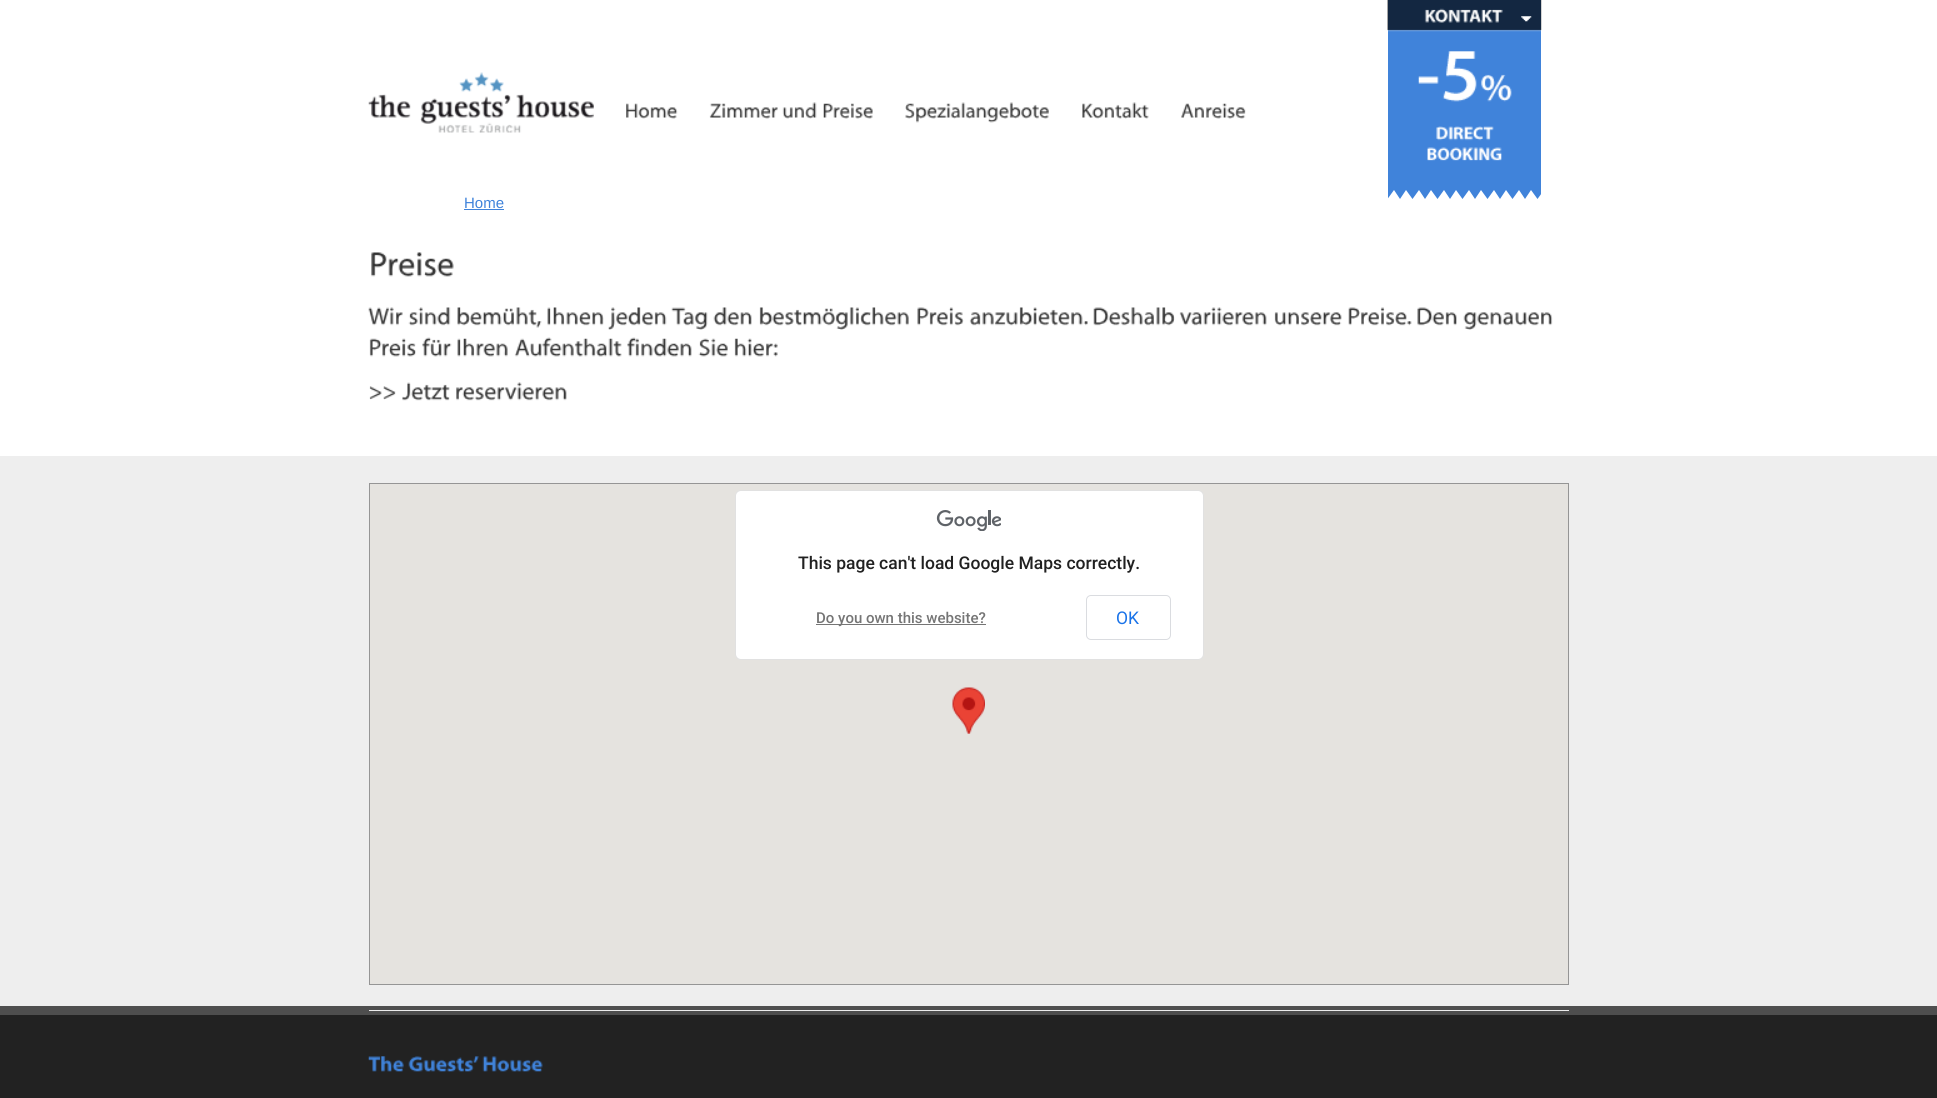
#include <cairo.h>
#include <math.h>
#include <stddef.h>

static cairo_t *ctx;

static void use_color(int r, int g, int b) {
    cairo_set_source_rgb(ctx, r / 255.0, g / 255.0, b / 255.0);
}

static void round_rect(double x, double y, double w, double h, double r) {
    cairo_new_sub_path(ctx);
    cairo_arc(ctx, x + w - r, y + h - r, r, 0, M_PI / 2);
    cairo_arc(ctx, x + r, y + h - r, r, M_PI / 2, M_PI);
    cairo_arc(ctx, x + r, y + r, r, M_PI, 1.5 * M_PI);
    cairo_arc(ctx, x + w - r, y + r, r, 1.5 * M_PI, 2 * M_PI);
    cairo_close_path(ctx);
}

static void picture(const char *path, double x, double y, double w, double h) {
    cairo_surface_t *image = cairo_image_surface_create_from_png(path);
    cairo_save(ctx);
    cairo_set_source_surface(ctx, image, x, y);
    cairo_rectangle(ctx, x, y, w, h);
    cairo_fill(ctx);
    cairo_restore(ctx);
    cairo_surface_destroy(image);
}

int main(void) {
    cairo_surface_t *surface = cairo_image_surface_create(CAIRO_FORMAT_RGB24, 1937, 1098);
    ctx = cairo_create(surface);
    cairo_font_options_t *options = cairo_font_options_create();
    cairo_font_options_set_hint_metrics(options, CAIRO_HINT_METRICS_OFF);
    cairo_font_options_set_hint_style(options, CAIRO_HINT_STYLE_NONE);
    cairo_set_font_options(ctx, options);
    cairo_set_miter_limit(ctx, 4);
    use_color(255, 255, 255);
    cairo_paint(ctx);
    picture("img1.png", 0, 0, 1937, 170);
    picture("img2.png", 368, 72, 226, 61);
    picture("img3.png", 626, 103, 52, 16);
    picture("img4.png", 709, 103, 69, 16);
    picture("img5.png", 782, 102, 35, 17);
    picture("img6.png", 823, 103, 50, 16);
    picture("img7.png", 905, 102, 144, 21);
    picture("img8.png", 1082, 102, 67, 17);
    picture("img9.png", 1181, 103, 65, 16);
    use_color(64, 131, 218);
    cairo_rectangle(ctx, 1388, 0, 153, 190);
    cairo_fill(ctx);
    picture("img10.png", 1387, 0, 155, 32);
    picture("img11.png", 1521, 16, 11, 6);
    picture("img12.png", 1424, 8, 79, 15);
    picture("img13.png", 1418, 51, 94, 110);
    cairo_save(ctx);
    cairo_rectangle(ctx, 1388, 190, 153, 13);
    cairo_clip(ctx);
    cairo_new_path(ctx);
    cairo_move_to(ctx, 1381, 190);
    cairo_line_to(ctx, 1394, 190);
    cairo_line_to(ctx, 1387.5, 199);
    cairo_close_path(ctx);
    cairo_fill(ctx);
    cairo_restore(ctx);
    cairo_new_path(ctx);
    cairo_move_to(ctx, 1394, 190);
    cairo_line_to(ctx, 1406, 190);
    cairo_line_to(ctx, 1400, 199);
    cairo_close_path(ctx);
    cairo_move_to(ctx, 1406, 190);
    cairo_line_to(ctx, 1419, 190);
    cairo_line_to(ctx, 1412.5, 199);
    cairo_close_path(ctx);
    cairo_move_to(ctx, 1419, 190);
    cairo_line_to(ctx, 1431, 190);
    cairo_line_to(ctx, 1425, 199);
    cairo_close_path(ctx);
    cairo_move_to(ctx, 1431, 190);
    cairo_line_to(ctx, 1444, 190);
    cairo_line_to(ctx, 1437.5, 199);
    cairo_close_path(ctx);
    cairo_move_to(ctx, 1444, 190);
    cairo_line_to(ctx, 1456, 190);
    cairo_line_to(ctx, 1450, 199);
    cairo_close_path(ctx);
    cairo_fill(ctx);
    cairo_new_path(ctx);
    cairo_move_to(ctx, 1456, 190);
    cairo_line_to(ctx, 1469, 190);
    cairo_line_to(ctx, 1462.5, 199);
    cairo_close_path(ctx);
    cairo_move_to(ctx, 1469, 190);
    cairo_line_to(ctx, 1481, 190);
    cairo_line_to(ctx, 1475, 199);
    cairo_close_path(ctx);
    cairo_move_to(ctx, 1481, 190);
    cairo_line_to(ctx, 1494, 190);
    cairo_line_to(ctx, 1487.5, 199);
    cairo_close_path(ctx);
    cairo_move_to(ctx, 1494, 190);
    cairo_line_to(ctx, 1506, 190);
    cairo_line_to(ctx, 1500, 199);
    cairo_close_path(ctx);
    cairo_move_to(ctx, 1506, 190);
    cairo_line_to(ctx, 1519, 190);
    cairo_line_to(ctx, 1512.5, 199);
    cairo_close_path(ctx);
    cairo_fill(ctx);
    cairo_new_path(ctx);
    cairo_move_to(ctx, 1519, 190);
    cairo_line_to(ctx, 1531, 190);
    cairo_line_to(ctx, 1525, 199);
    cairo_close_path(ctx);
    cairo_fill(ctx);
    cairo_save(ctx);
    cairo_rectangle(ctx, 1388, 190, 153, 13);
    cairo_clip(ctx);
    cairo_new_path(ctx);
    cairo_move_to(ctx, 1531, 190);
    cairo_line_to(ctx, 1544, 190);
    cairo_line_to(ctx, 1537.5, 199);
    cairo_close_path(ctx);
    cairo_fill(ctx);
    cairo_restore(ctx);
    cairo_select_font_face(ctx, "Liberation Sans", CAIRO_FONT_SLANT_NORMAL, CAIRO_FONT_WEIGHT_NORMAL);
    cairo_set_font_size(ctx, 15);
    cairo_move_to(ctx, 464, 208);
    cairo_show_text(ctx, "Home");
    cairo_rectangle(ctx, 464, 209, 40, 1);
    cairo_fill(ctx);
    picture("img14.png", 371, 252, 83, 25);
    picture("img15.png", 368, 307, 35, 19);
    picture("img16.png", 408, 307, 43, 19);
    picture("img17.png", 457, 307, 85, 21);
    picture("img18.png", 547, 307, 57, 19);
    picture("img19.png", 608, 307, 59, 23);
    picture("img20.png", 671, 307, 37, 23);
    picture("img21.png", 713, 307, 39, 19);
    picture("img22.png", 759, 307, 150, 23);
    picture("img23.png", 917, 307, 47, 19);
    picture("img24.png", 969, 307, 119, 19);
    picture("img25.png", 1093, 307, 82, 19);
    picture("img26.png", 1179, 307, 88, 19);
    picture("img27.png", 1274, 312, 68, 14);
    picture("img28.png", 1348, 307, 64, 19);
    picture("img29.png", 1417, 307, 40, 19);
    picture("img30.png", 1463, 312, 90, 18);
    picture("img31.png", 369, 338, 47, 19);
    picture("img32.png", 422, 337, 30, 20);
    picture("img33.png", 457, 338, 51, 19);
    picture("img34.png", 514, 337, 108, 20);
    picture("img35.png", 627, 337, 65, 20);
    picture("img36.png", 698, 338, 30, 19);
    picture("img37.png", 734, 338, 44, 19);
    picture("img38.png", 369, 386, 27, 14);
    picture("img39.png", 402, 382, 48, 19);
    picture("img40.png", 456, 382, 111, 19);
    use_color(238, 238, 238);
    cairo_rectangle(ctx, 0, 456, 1937, 550);
    cairo_fill(ctx);
    cairo_rectangle(ctx, 369.5, 483.5, 1199, 501);
    use_color(149, 149, 149);
    cairo_set_line_width(ctx, 1);
    cairo_stroke(ctx);
    use_color(229, 227, 223);
    cairo_rectangle(ctx, 370, 484, 1198, 500);
    cairo_fill(ctx);
    picture("img41.png", 952, 687, 33, 47);
    use_color(255, 255, 255);
    round_rect(735, 490, 469, 170, 6);
    cairo_fill(ctx);
    round_rect(735.5, 490.5, 468, 169, 5.5);
    cairo_set_source_rgba(ctx, 0, 0, 0, 0.12);
    cairo_stroke(ctx);
    picture("img42.png", 936, 510, 65, 21);
    cairo_select_font_face(ctx, "Roboto Medium", CAIRO_FONT_SLANT_NORMAL, CAIRO_FONT_WEIGHT_NORMAL);
    cairo_set_font_size(ctx, 17.5);
    use_color(33, 33, 33);
    cairo_move_to(ctx, 798, 569);
    cairo_show_text(ctx, "This page can't load Google Maps correctly.");
    use_color(117, 117, 117);
    cairo_rectangle(ctx, 816, 624, 170, 1);
    cairo_fill(ctx);
    cairo_set_font_size(ctx, 15);
    cairo_move_to(ctx, 816, 623);
    cairo_show_text(ctx, "Do you own this website?");
    round_rect(1086.5, 595.5, 84, 44, 4.5);
    use_color(218, 220, 224);
    cairo_stroke(ctx);
    cairo_select_font_face(ctx, "Roboto", CAIRO_FONT_SLANT_NORMAL, CAIRO_FONT_WEIGHT_NORMAL);
    cairo_set_font_size(ctx, 17.5);
    use_color(26, 115, 232);
    cairo_move_to(ctx, 1116, 624);
    cairo_show_text(ctx, "OK");
    use_color(78, 78, 78);
    cairo_rectangle(ctx, 0, 1006, 1937, 9);
    cairo_fill(ctx);
    use_color(236, 236, 236);
    cairo_rectangle(ctx, 369, 1010, 1200, 1);
    cairo_fill(ctx);
    use_color(34, 34, 34);
    cairo_rectangle(ctx, 0, 1015, 1937, 83);
    cairo_fill(ctx);
    picture("img43.png", 368, 1056, 36, 16);
    picture("img44.png", 408, 1056, 71, 16);
    picture("img45.png", 482, 1056, 61, 16);
    cairo_surface_write_to_png(surface, "result.png");
    cairo_font_options_destroy(options);
    cairo_destroy(ctx);
    cairo_surface_destroy(surface);
    return 0;
}
